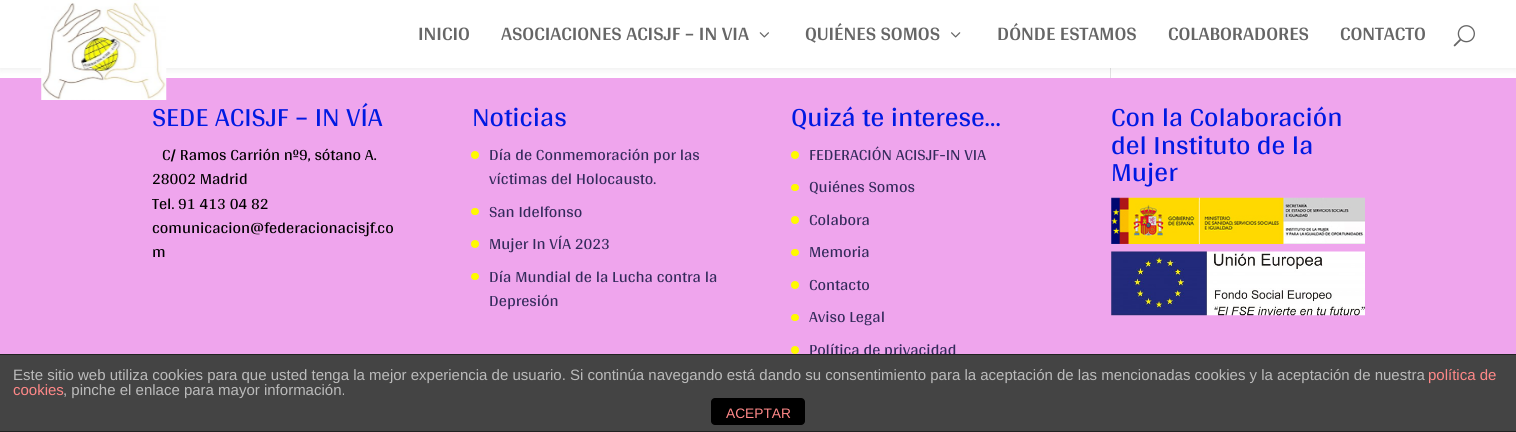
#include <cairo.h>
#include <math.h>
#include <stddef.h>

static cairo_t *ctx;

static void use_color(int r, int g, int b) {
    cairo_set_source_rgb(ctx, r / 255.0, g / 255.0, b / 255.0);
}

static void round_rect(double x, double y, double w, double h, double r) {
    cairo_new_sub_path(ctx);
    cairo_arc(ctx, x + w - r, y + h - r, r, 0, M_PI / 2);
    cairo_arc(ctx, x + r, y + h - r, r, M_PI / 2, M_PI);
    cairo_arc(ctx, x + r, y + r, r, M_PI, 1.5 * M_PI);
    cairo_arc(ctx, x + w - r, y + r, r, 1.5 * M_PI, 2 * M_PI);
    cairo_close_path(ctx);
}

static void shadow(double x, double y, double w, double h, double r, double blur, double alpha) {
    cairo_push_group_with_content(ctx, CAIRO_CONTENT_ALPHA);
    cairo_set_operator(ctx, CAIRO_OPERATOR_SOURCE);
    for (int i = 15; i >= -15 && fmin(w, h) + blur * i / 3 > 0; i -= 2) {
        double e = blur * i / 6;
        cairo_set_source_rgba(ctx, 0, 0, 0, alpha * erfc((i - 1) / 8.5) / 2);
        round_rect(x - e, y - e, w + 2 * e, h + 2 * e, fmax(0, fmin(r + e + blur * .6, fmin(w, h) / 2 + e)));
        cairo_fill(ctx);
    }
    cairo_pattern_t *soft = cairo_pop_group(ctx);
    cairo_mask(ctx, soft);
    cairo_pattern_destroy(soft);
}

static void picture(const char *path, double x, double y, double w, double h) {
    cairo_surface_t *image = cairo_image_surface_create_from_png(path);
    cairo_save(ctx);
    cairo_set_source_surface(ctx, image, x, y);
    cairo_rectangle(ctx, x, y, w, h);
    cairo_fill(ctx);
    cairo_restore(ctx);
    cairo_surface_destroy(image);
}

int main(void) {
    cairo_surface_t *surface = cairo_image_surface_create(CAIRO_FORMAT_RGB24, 1516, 432);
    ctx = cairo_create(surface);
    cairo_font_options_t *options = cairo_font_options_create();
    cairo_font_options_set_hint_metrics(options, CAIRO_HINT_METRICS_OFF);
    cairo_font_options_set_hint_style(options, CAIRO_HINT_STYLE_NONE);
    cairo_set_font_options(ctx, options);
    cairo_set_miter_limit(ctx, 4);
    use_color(255, 255, 255);
    cairo_paint(ctx);
    use_color(226, 226, 226);
    cairo_rectangle(ctx, 1110, 68, 1, 10);
    cairo_fill(ctx);
    use_color(239, 165, 237);
    cairo_rectangle(ctx, 0, 78, 1516, 276);
    cairo_fill(ctx);
    use_color(0, 0, 0);
    shadow(0, 0, 1516, 68, 0, 4.5, 0.1);
    use_color(255, 255, 255);
    cairo_rectangle(ctx, 0, 0, 1516, 68);
    cairo_fill(ctx);
    picture("img1.png", 41, 0, 126, 100);
    cairo_select_font_face(ctx, "Arya", CAIRO_FONT_SLANT_NORMAL, CAIRO_FONT_WEIGHT_BOLD);
    cairo_set_font_size(ctx, 20);
    use_color(102, 102, 102);
    cairo_move_to(ctx, 418, 40);
    cairo_show_text(ctx, "INICIO");
    cairo_move_to(ctx, 501, 40);
    cairo_show_text(ctx, "ASOCIACIONES ACISJF – IN VIA");
    picture("img2.png", 759, 32, 10, 6);
    cairo_move_to(ctx, 805, 40);
    cairo_show_text(ctx, "QUIÉNES SOMOS");
    picture("img3.png", 951, 32, 10, 6);
    cairo_move_to(ctx, 997, 40);
    cairo_show_text(ctx, "DÓNDE ESTAMOS");
    cairo_move_to(ctx, 1168, 40);
    cairo_show_text(ctx, "COLABORADORES");
    cairo_move_to(ctx, 1340, 40);
    cairo_show_text(ctx, "CONTACTO");
    picture("img4.png", 1453, 25, 22, 22);
    cairo_select_font_face(ctx, "Arya", CAIRO_FONT_SLANT_NORMAL, CAIRO_FONT_WEIGHT_NORMAL);
    cairo_set_font_size(ctx, 27.5);
    use_color(0, 26, 226);
    cairo_move_to(ctx, 152, 126);
    cairo_show_text(ctx, "SEDE ACISJF – IN VÍA");
    cairo_set_font_size(ctx, 16.25);
    use_color(0, 0, 0);
    cairo_move_to(ctx, 162, 160);
    cairo_show_text(ctx, "C/ Ramos Carrión nº9, sótano A.");
    cairo_move_to(ctx, 152, 184);
    cairo_show_text(ctx, "28002 Madrid");
    cairo_move_to(ctx, 152, 209);
    cairo_show_text(ctx, "Tel. 91 413 04 82");
    cairo_move_to(ctx, 152, 233);
    cairo_show_text(ctx, "comunicacion@federacionacisjf.co");
    cairo_move_to(ctx, 152, 257);
    cairo_show_text(ctx, "m");
    cairo_set_font_size(ctx, 27.5);
    use_color(0, 26, 226);
    cairo_move_to(ctx, 472, 126);
    cairo_show_text(ctx, "Noticias");
    use_color(255, 250, 0);
    cairo_new_path(ctx);
    cairo_arc(ctx, 475, 155, 4, 0, 2 * M_PI);
    cairo_fill(ctx);
    cairo_set_font_size(ctx, 16.25);
    use_color(51, 42, 91);
    cairo_move_to(ctx, 489, 160);
    cairo_show_text(ctx, "Día de Conmemoración por las");
    cairo_move_to(ctx, 489, 184);
    cairo_show_text(ctx, "víctimas del Holocausto.");
    use_color(255, 250, 0);
    round_rect(471, 208, 8, 7, 3.5);
    cairo_fill(ctx);
    use_color(51, 42, 91);
    cairo_move_to(ctx, 489, 217);
    cairo_show_text(ctx, "San Idelfonso");
    use_color(255, 250, 0);
    cairo_new_path(ctx);
    cairo_arc(ctx, 475, 244, 4, 0, 2 * M_PI);
    cairo_fill(ctx);
    use_color(51, 42, 91);
    cairo_move_to(ctx, 489, 249);
    cairo_show_text(ctx, "Mujer In VÍA 2023");
    use_color(255, 250, 0);
    round_rect(471, 273, 8, 7, 3.5);
    cairo_fill(ctx);
    use_color(51, 42, 91);
    cairo_move_to(ctx, 489, 282);
    cairo_show_text(ctx, "Día Mundial de la Lucha contra la");
    cairo_move_to(ctx, 489, 306);
    cairo_show_text(ctx, "Depresión");
    cairo_set_font_size(ctx, 27.5);
    use_color(0, 26, 226);
    cairo_move_to(ctx, 791, 126);
    cairo_show_text(ctx, "Quizá te interese…");
    use_color(255, 250, 0);
    cairo_new_path(ctx);
    cairo_arc(ctx, 795, 155, 4, 0, 2 * M_PI);
    cairo_fill(ctx);
    cairo_set_font_size(ctx, 16.25);
    use_color(51, 42, 91);
    cairo_move_to(ctx, 809, 160);
    cairo_show_text(ctx, "FEDERACIÓN ACISJF-IN VIA");
    use_color(255, 250, 0);
    round_rect(791, 184, 8, 7, 3.5);
    cairo_fill(ctx);
    use_color(51, 42, 91);
    cairo_move_to(ctx, 809, 192);
    cairo_show_text(ctx, "Quiénes Somos");
    use_color(255, 250, 0);
    cairo_new_path(ctx);
    cairo_arc(ctx, 795, 220, 4, 0, 2 * M_PI);
    cairo_fill(ctx);
    use_color(51, 42, 91);
    cairo_move_to(ctx, 809, 225);
    cairo_show_text(ctx, "Colabora");
    use_color(255, 250, 0);
    round_rect(791, 249, 8, 7, 3.5);
    cairo_fill(ctx);
    use_color(51, 42, 91);
    cairo_move_to(ctx, 809, 257);
    cairo_show_text(ctx, "Memoria");
    use_color(255, 250, 0);
    cairo_new_path(ctx);
    cairo_arc(ctx, 795, 285, 4, 0, 2 * M_PI);
    cairo_fill(ctx);
    use_color(51, 42, 91);
    cairo_move_to(ctx, 809, 290);
    cairo_show_text(ctx, "Contacto");
    use_color(255, 250, 0);
    round_rect(791, 314, 8, 7, 3.5);
    cairo_fill(ctx);
    use_color(51, 42, 91);
    cairo_move_to(ctx, 809, 322);
    cairo_show_text(ctx, "Aviso Legal");
    use_color(255, 250, 0);
    cairo_new_path(ctx);
    cairo_arc(ctx, 795, 350, 4, 0, 2 * M_PI);
    cairo_fill(ctx);
    use_color(51, 42, 91);
    cairo_move_to(ctx, 809, 355);
    cairo_show_text(ctx, "Política de privacidad");
    cairo_set_font_size(ctx, 27.5);
    use_color(0, 26, 226);
    cairo_move_to(ctx, 1111, 126);
    cairo_show_text(ctx, "Con la Colaboración");
    cairo_move_to(ctx, 1111, 154);
    cairo_show_text(ctx, "del Instituto de la");
    cairo_move_to(ctx, 1111, 181);
    cairo_show_text(ctx, "Mujer");
    picture("img5.png", 1111, 197, 254, 47);
    picture("img6.png", 1111, 251, 254, 65);
    use_color(68, 68, 68);
    cairo_rectangle(ctx, 0, 355, 1516, 76);
    cairo_fill(ctx);
    use_color(34, 34, 34);
    cairo_rectangle(ctx, 0, 354, 1516, 1);
    cairo_fill(ctx);
    cairo_rectangle(ctx, 0, 431, 1516, 1);
    cairo_fill(ctx);
    cairo_select_font_face(ctx, "Liberation Sans", CAIRO_FONT_SLANT_NORMAL, CAIRO_FONT_WEIGHT_NORMAL);
    cairo_set_font_size(ctx, 15);
    use_color(187, 187, 187);
    cairo_move_to(ctx, 13, 380);
    cairo_show_text(ctx, "Este sitio web utiliza cookies para que usted tenga la mejor experiencia de usuario. Si continúa navegando está dando su consentimiento para la aceptación de las mencionadas cookies y la aceptación de nuestra");
    use_color(255, 136, 136);
    cairo_move_to(ctx, 1428, 380);
    cairo_show_text(ctx, "política de");
    cairo_move_to(ctx, 13, 395);
    cairo_show_text(ctx, "cookies");
    use_color(187, 187, 187);
    cairo_move_to(ctx, 63, 395);
    cairo_show_text(ctx, ", pinche el enlace para mayor información.");
    use_color(0, 0, 0);
    round_rect(711, 398, 94, 27, 4);
    cairo_fill(ctx);
    cairo_set_font_size(ctx, 13.75);
    use_color(255, 136, 136);
    cairo_move_to(ctx, 726, 418);
    cairo_show_text(ctx, "ACEPTAR");
    cairo_surface_write_to_png(surface, "result.png");
    cairo_font_options_destroy(options);
    cairo_destroy(ctx);
    cairo_surface_destroy(surface);
    return 0;
}
